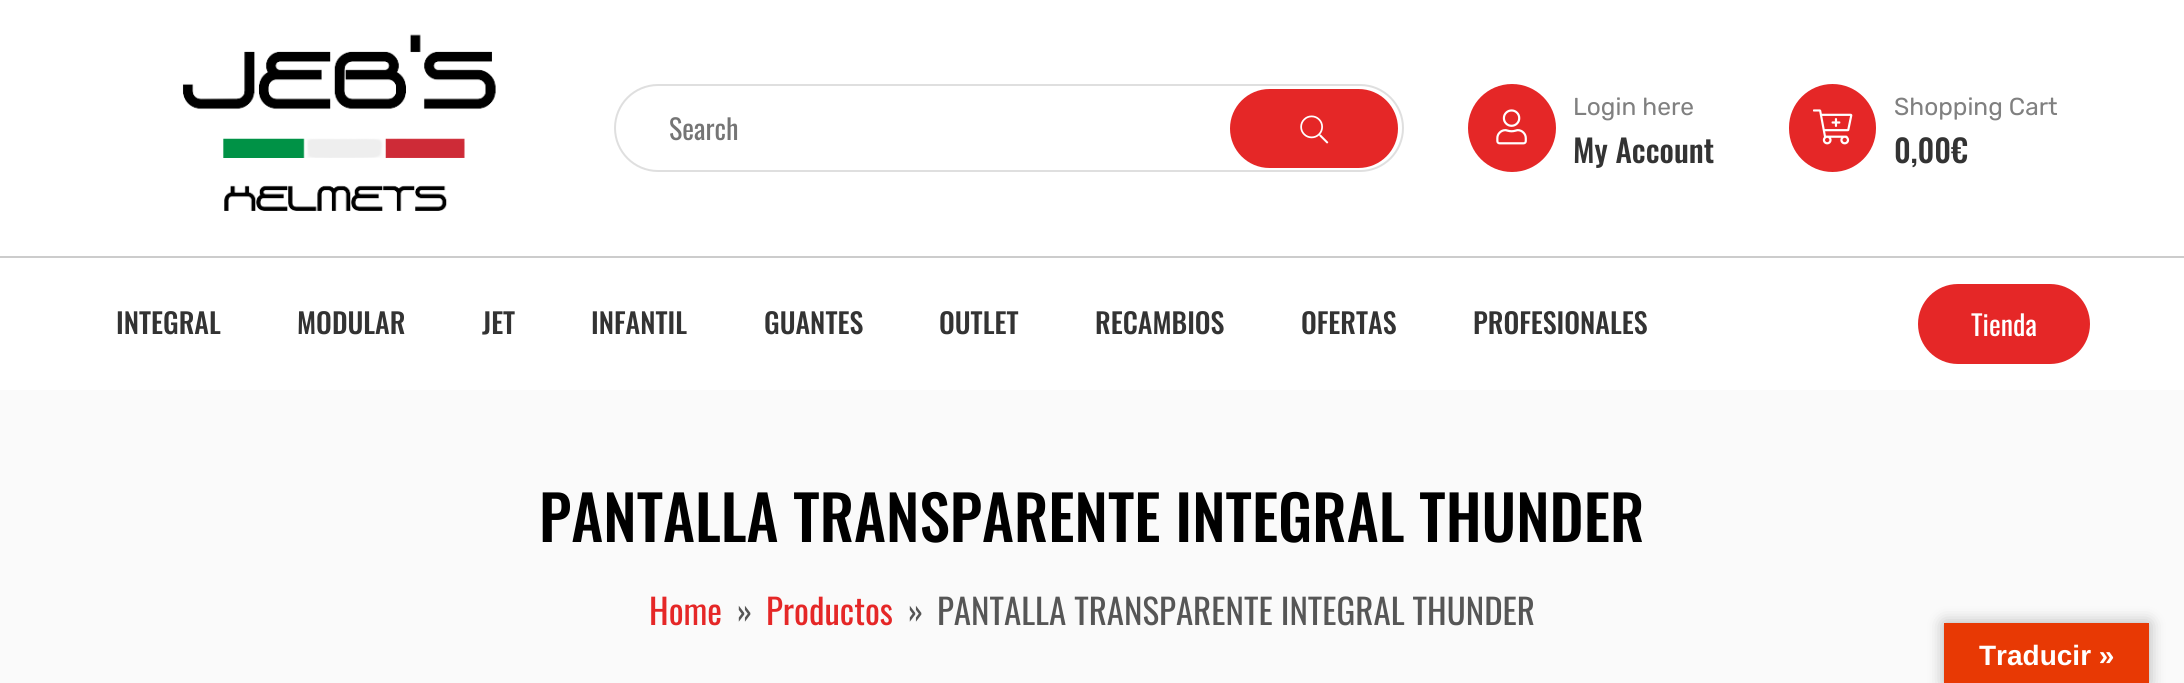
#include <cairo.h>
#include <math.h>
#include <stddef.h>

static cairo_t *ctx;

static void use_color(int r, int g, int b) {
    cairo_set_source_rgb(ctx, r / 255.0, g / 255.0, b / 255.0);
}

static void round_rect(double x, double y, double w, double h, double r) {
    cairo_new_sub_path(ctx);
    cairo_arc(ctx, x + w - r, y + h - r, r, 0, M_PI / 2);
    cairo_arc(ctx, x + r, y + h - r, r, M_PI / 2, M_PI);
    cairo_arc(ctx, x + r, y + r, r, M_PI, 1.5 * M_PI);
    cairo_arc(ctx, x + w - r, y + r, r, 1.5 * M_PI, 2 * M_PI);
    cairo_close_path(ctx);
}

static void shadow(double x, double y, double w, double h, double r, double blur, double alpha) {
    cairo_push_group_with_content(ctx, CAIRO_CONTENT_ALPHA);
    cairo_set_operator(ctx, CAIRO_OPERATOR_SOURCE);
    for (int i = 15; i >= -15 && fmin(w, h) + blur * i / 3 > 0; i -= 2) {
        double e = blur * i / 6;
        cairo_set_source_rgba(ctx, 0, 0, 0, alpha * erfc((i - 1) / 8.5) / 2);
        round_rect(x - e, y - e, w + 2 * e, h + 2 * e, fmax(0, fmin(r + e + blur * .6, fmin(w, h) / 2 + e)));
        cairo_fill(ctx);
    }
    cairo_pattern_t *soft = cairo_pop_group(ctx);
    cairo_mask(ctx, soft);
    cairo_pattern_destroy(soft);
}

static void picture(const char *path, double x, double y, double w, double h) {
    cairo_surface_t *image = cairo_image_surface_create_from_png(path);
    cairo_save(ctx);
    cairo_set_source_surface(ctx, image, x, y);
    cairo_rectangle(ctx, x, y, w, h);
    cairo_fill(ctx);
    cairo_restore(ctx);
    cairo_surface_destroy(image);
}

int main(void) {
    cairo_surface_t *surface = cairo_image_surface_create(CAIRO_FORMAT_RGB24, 2184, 683);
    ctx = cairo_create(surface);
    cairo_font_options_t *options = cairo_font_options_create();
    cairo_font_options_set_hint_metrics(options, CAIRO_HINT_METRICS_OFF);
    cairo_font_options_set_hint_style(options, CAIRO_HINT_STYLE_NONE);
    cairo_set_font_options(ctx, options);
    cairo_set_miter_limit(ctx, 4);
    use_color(255, 255, 255);
    cairo_paint(ctx);
    use_color(204, 204, 204);
    cairo_rectangle(ctx, 0, 256, 2184, 2);
    cairo_fill(ctx);
    picture("img1.png", 182, 34, 314, 177);
    round_rect(615, 85, 788, 86, 43);
    use_color(223, 223, 223);
    cairo_stroke(ctx);
    cairo_select_font_face(ctx, "Oswald", CAIRO_FONT_SLANT_NORMAL, CAIRO_FONT_WEIGHT_NORMAL);
    cairo_set_font_size(ctx, 28);
    use_color(117, 117, 117);
    cairo_move_to(ctx, 669, 140);
    cairo_show_text(ctx, "Search");
    use_color(229, 39, 39);
    round_rect(1230, 89, 168, 79, 39.5);
    cairo_fill(ctx);
    picture("img2.png", 1300, 115, 29, 29);
    cairo_arc(ctx, 1512, 128, 44, 0, 2 * M_PI);
    cairo_fill(ctx);
    picture("img3.png", 1496, 109, 31, 36);
    cairo_select_font_face(ctx, "Rubik", CAIRO_FONT_SLANT_NORMAL, CAIRO_FONT_WEIGHT_NORMAL);
    cairo_set_font_size(ctx, 24.5);
    use_color(128, 128, 128);
    cairo_move_to(ctx, 1573, 115);
    cairo_show_text(ctx, "Login here");
    cairo_select_font_face(ctx, "Oswald Medium", CAIRO_FONT_SLANT_NORMAL, CAIRO_FONT_WEIGHT_NORMAL);
    cairo_set_font_size(ctx, 31.5);
    use_color(51, 51, 51);
    cairo_move_to(ctx, 1573, 163);
    cairo_show_text(ctx, "My Account");
    use_color(229, 39, 39);
    round_rect(1789, 84, 87, 88, 43.5);
    cairo_fill(ctx);
    picture("img4.png", 1813, 109, 40, 36);
    cairo_select_font_face(ctx, "Rubik", CAIRO_FONT_SLANT_NORMAL, CAIRO_FONT_WEIGHT_NORMAL);
    cairo_set_font_size(ctx, 24.5);
    use_color(128, 128, 128);
    cairo_move_to(ctx, 1894, 115);
    cairo_show_text(ctx, "Shopping Cart");
    cairo_select_font_face(ctx, "Oswald Medium", CAIRO_FONT_SLANT_NORMAL, CAIRO_FONT_WEIGHT_NORMAL);
    cairo_set_font_size(ctx, 31.5);
    use_color(51, 51, 51);
    cairo_move_to(ctx, 1894, 163);
    cairo_show_text(ctx, "0,00€");
    cairo_set_font_size(ctx, 28);
    cairo_move_to(ctx, 116, 334);
    cairo_show_text(ctx, "INTEGRAL");
    cairo_move_to(ctx, 297, 334);
    cairo_show_text(ctx, "MODULAR");
    cairo_move_to(ctx, 482, 334);
    cairo_show_text(ctx, "JET");
    cairo_move_to(ctx, 591, 334);
    cairo_show_text(ctx, "INFANTIL");
    cairo_move_to(ctx, 764, 334);
    cairo_show_text(ctx, "GUANTES");
    cairo_move_to(ctx, 939, 334);
    cairo_show_text(ctx, "OUTLET");
    cairo_move_to(ctx, 1095, 334);
    cairo_show_text(ctx, "RECAMBIOS");
    cairo_move_to(ctx, 1301, 334);
    cairo_show_text(ctx, "OFERTAS");
    cairo_move_to(ctx, 1473, 334);
    cairo_show_text(ctx, "PROFESIONALES");
    use_color(229, 39, 39);
    round_rect(1918, 284, 172, 80, 40);
    cairo_fill(ctx);
    cairo_select_font_face(ctx, "Oswald", CAIRO_FONT_SLANT_NORMAL, CAIRO_FONT_WEIGHT_NORMAL);
    use_color(255, 255, 255);
    cairo_move_to(ctx, 1971, 336);
    cairo_show_text(ctx, "Tienda");
    use_color(250, 250, 250);
    cairo_rectangle(ctx, 0, 390, 2184, 293);
    cairo_fill(ctx);
    cairo_select_font_face(ctx, "Oswald Medium", CAIRO_FONT_SLANT_NORMAL, CAIRO_FONT_WEIGHT_NORMAL);
    cairo_set_font_size(ctx, 61.25);
    use_color(0, 0, 0);
    cairo_move_to(ctx, 539, 542);
    cairo_show_text(ctx, "PANTALLA TRANSPARENTE INTEGRAL THUNDER");
    cairo_select_font_face(ctx, "Oswald", CAIRO_FONT_SLANT_NORMAL, CAIRO_FONT_WEIGHT_NORMAL);
    cairo_set_font_size(ctx, 35);
    use_color(229, 39, 39);
    cairo_move_to(ctx, 649, 625);
    cairo_show_text(ctx, "Home");
    cairo_set_font_size(ctx, 31.5);
    use_color(86, 86, 86);
    cairo_move_to(ctx, 737, 623);
    cairo_show_text(ctx, "»");
    cairo_set_font_size(ctx, 35);
    use_color(229, 39, 39);
    cairo_move_to(ctx, 766, 625);
    cairo_show_text(ctx, "Productos");
    cairo_set_font_size(ctx, 31.5);
    use_color(86, 86, 86);
    cairo_move_to(ctx, 908, 623);
    cairo_show_text(ctx, "»");
    cairo_set_font_size(ctx, 35);
    cairo_move_to(ctx, 937, 625);
    cairo_show_text(ctx, "PANTALLA TRANSPARENTE INTEGRAL THUNDER");
    use_color(0, 0, 0);
    shadow(1944, 623, 205, 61, 0, 8, 0.3);
    use_color(232, 57, 4);
    cairo_rectangle(ctx, 1944, 623, 205, 60);
    cairo_fill(ctx);
    cairo_select_font_face(ctx, "Liberation Sans", CAIRO_FONT_SLANT_NORMAL, CAIRO_FONT_WEIGHT_BOLD);
    cairo_set_font_size(ctx, 28);
    use_color(255, 255, 255);
    cairo_move_to(ctx, 1979, 665);
    cairo_show_text(ctx, "Traducir »");
    cairo_surface_write_to_png(surface, "result.png");
    cairo_font_options_destroy(options);
    cairo_destroy(ctx);
    cairo_surface_destroy(surface);
    return 0;
}
